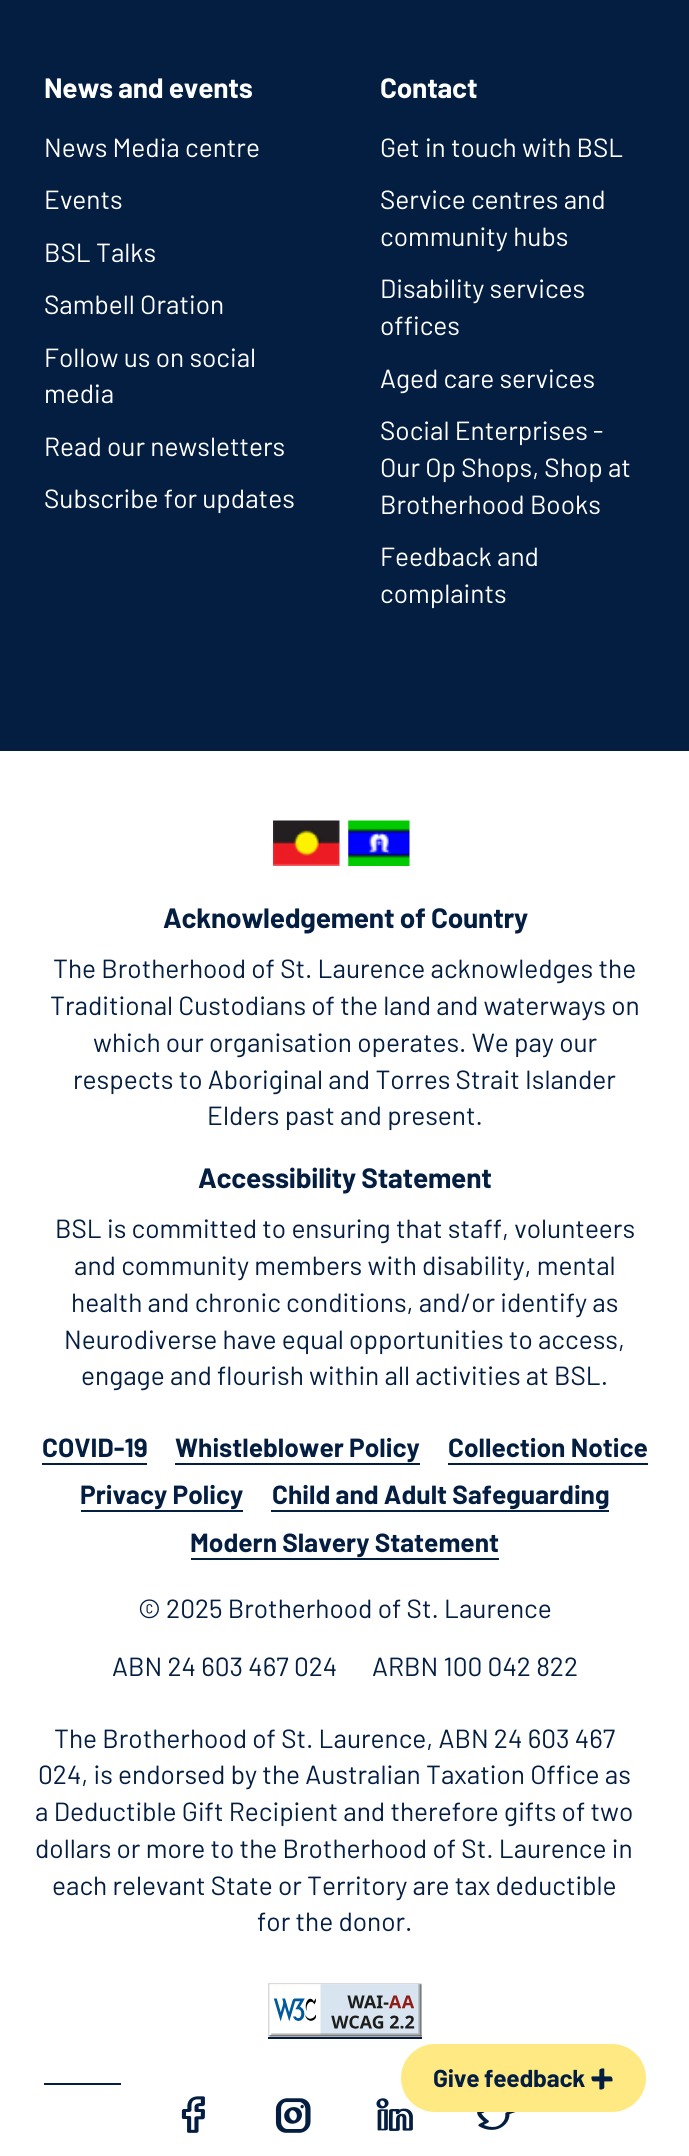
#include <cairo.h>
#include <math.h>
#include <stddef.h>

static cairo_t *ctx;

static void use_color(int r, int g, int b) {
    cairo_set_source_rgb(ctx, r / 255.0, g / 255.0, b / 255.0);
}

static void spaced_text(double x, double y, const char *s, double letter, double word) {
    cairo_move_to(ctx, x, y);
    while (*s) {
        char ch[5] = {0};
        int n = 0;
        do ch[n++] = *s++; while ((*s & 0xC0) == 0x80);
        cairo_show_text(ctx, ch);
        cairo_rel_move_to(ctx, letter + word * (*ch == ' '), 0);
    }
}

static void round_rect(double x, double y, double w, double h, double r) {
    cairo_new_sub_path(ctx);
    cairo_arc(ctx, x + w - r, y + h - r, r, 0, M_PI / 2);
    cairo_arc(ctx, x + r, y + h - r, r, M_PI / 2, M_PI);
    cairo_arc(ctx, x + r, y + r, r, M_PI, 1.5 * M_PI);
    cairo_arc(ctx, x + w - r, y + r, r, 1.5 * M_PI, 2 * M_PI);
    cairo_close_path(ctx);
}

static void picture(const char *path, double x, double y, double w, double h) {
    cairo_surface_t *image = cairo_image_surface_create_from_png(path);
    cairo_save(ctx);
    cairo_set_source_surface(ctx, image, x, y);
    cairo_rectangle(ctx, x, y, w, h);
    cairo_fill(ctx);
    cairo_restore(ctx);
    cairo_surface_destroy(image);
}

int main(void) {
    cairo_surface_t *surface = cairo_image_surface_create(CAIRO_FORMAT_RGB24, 689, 2156);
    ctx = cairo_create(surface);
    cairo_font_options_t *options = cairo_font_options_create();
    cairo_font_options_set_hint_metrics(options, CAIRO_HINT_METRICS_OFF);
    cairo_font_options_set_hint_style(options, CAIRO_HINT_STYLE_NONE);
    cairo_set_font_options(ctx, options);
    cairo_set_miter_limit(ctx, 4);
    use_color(255, 255, 255);
    cairo_paint(ctx);
    use_color(4, 30, 66);
    cairo_rectangle(ctx, 0, 0, 689, 751);
    cairo_fill(ctx);
    cairo_select_font_face(ctx, "Barlow", CAIRO_FONT_SLANT_NORMAL, CAIRO_FONT_WEIGHT_BOLD);
    cairo_set_font_size(ctx, 28);
    use_color(255, 255, 255);
    spaced_text(44, 98, "News and events", -0.25, 0);
    cairo_select_font_face(ctx, "Barlow", CAIRO_FONT_SLANT_NORMAL, CAIRO_FONT_WEIGHT_NORMAL);
    cairo_set_font_size(ctx, 26.25);
    cairo_move_to(ctx, 44, 157);
    cairo_show_text(ctx, "News Media centre");
    cairo_move_to(ctx, 44, 209);
    cairo_show_text(ctx, "Events");
    cairo_move_to(ctx, 44, 262);
    cairo_show_text(ctx, "BSL Talks");
    cairo_move_to(ctx, 44, 314);
    cairo_show_text(ctx, "Sambell Oration");
    cairo_move_to(ctx, 44, 367);
    cairo_show_text(ctx, "Follow us on social");
    cairo_move_to(ctx, 44, 403);
    cairo_show_text(ctx, "media");
    cairo_move_to(ctx, 44, 456);
    cairo_show_text(ctx, "Read our newsletters");
    cairo_move_to(ctx, 44, 508);
    cairo_show_text(ctx, "Subscribe for updates");
    cairo_select_font_face(ctx, "Barlow", CAIRO_FONT_SLANT_NORMAL, CAIRO_FONT_WEIGHT_BOLD);
    cairo_set_font_size(ctx, 28);
    spaced_text(380, 98, "Contact", -0.25, 0);
    cairo_select_font_face(ctx, "Barlow", CAIRO_FONT_SLANT_NORMAL, CAIRO_FONT_WEIGHT_NORMAL);
    cairo_set_font_size(ctx, 26.25);
    cairo_move_to(ctx, 380, 157);
    cairo_show_text(ctx, "Get in touch with BSL");
    cairo_move_to(ctx, 380, 209);
    cairo_show_text(ctx, "Service centres and");
    cairo_move_to(ctx, 380, 246);
    cairo_show_text(ctx, "community hubs");
    cairo_move_to(ctx, 380, 298);
    cairo_show_text(ctx, "Disability services");
    cairo_move_to(ctx, 380, 335);
    cairo_show_text(ctx, "offices");
    cairo_move_to(ctx, 380, 388);
    cairo_show_text(ctx, "Aged care services");
    cairo_move_to(ctx, 380, 440);
    cairo_show_text(ctx, "Social Enterprises -");
    cairo_move_to(ctx, 380, 477);
    cairo_show_text(ctx, "Our Op Shops, Shop at");
    cairo_move_to(ctx, 380, 514);
    cairo_show_text(ctx, "Brotherhood Books");
    cairo_move_to(ctx, 380, 566);
    cairo_show_text(ctx, "Feedback and");
    cairo_move_to(ctx, 380, 603);
    cairo_show_text(ctx, "complaints");
    picture("img1.png", 273, 820, 67, 46);
    picture("img2.png", 348, 820, 62, 46);
    cairo_select_font_face(ctx, "Barlow", CAIRO_FONT_SLANT_NORMAL, CAIRO_FONT_WEIGHT_BOLD);
    cairo_set_font_size(ctx, 28);
    use_color(4, 30, 66);
    spaced_text(163, 928, "Acknowledgement of Country", -0.25, 0);
    cairo_select_font_face(ctx, "Barlow", CAIRO_FONT_SLANT_NORMAL, CAIRO_FONT_WEIGHT_NORMAL);
    cairo_set_font_size(ctx, 26.25);
    cairo_move_to(ctx, 53, 978);
    cairo_show_text(ctx, "The Brotherhood of St. Laurence acknowledges the");
    cairo_move_to(ctx, 50, 1015);
    cairo_show_text(ctx, "Traditional Custodians of the land and waterways on");
    cairo_move_to(ctx, 93, 1052);
    cairo_show_text(ctx, "which our organisation operates. We pay our");
    cairo_move_to(ctx, 73, 1089);
    cairo_show_text(ctx, "respects to Aboriginal and Torres Strait Islander");
    cairo_move_to(ctx, 207, 1125);
    cairo_show_text(ctx, "Elders past and present.");
    cairo_select_font_face(ctx, "Barlow", CAIRO_FONT_SLANT_NORMAL, CAIRO_FONT_WEIGHT_BOLD);
    cairo_set_font_size(ctx, 28);
    spaced_text(198, 1188, "Accessibility Statement", -0.25, 0);
    cairo_select_font_face(ctx, "Barlow", CAIRO_FONT_SLANT_NORMAL, CAIRO_FONT_WEIGHT_NORMAL);
    cairo_set_font_size(ctx, 26.25);
    cairo_move_to(ctx, 55, 1238);
    cairo_show_text(ctx, "BSL is committed to ensuring that staff, volunteers");
    cairo_move_to(ctx, 74, 1275);
    cairo_show_text(ctx, "and community members with disability, mental");
    cairo_move_to(ctx, 71, 1312);
    cairo_show_text(ctx, "health and chronic conditions, and/or identify as");
    cairo_move_to(ctx, 64, 1349);
    cairo_show_text(ctx, "Neurodiverse have equal opportunities to access,");
    cairo_move_to(ctx, 81, 1385);
    cairo_show_text(ctx, "engage and flourish within all activities at BSL.");
    cairo_select_font_face(ctx, "Barlow", CAIRO_FONT_SLANT_NORMAL, CAIRO_FONT_WEIGHT_BOLD);
    cairo_move_to(ctx, 42, 1457);
    cairo_show_text(ctx, "COVID-19");
    cairo_rectangle(ctx, 42, 1463, 105, 2);
    cairo_fill(ctx);
    cairo_move_to(ctx, 175, 1457);
    cairo_show_text(ctx, "Whistleblower Policy");
    cairo_rectangle(ctx, 175, 1463, 245, 2);
    cairo_fill(ctx);
    cairo_move_to(ctx, 448, 1457);
    cairo_show_text(ctx, "Collection Notice");
    cairo_rectangle(ctx, 448, 1463, 200, 2);
    cairo_fill(ctx);
    cairo_move_to(ctx, 80, 1504);
    cairo_show_text(ctx, "Privacy Policy");
    cairo_rectangle(ctx, 81, 1510, 162, 2);
    cairo_fill(ctx);
    cairo_move_to(ctx, 272, 1504);
    cairo_show_text(ctx, "Child and Adult Safeguarding");
    cairo_rectangle(ctx, 271, 1510, 338, 2);
    cairo_fill(ctx);
    cairo_move_to(ctx, 190, 1552);
    cairo_show_text(ctx, "Modern Slavery Statement");
    cairo_rectangle(ctx, 191, 1558, 308, 2);
    cairo_fill(ctx);
    cairo_select_font_face(ctx, "Barlow", CAIRO_FONT_SLANT_NORMAL, CAIRO_FONT_WEIGHT_NORMAL);
    cairo_move_to(ctx, 138, 1618);
    cairo_show_text(ctx, "© 2025 Brotherhood of St. Laurence");
    cairo_move_to(ctx, 112, 1676);
    cairo_show_text(ctx, "ABN 24 603 467 024");
    cairo_move_to(ctx, 372, 1676);
    cairo_show_text(ctx, "ARBN 100 042 822");
    cairo_move_to(ctx, 54, 1748);
    cairo_show_text(ctx, "The Brotherhood of St. Laurence, ABN 24 603 467");
    cairo_move_to(ctx, 38, 1784);
    cairo_show_text(ctx, "024, is endorsed by the Australian Taxation Office as");
    cairo_move_to(ctx, 35, 1821);
    cairo_show_text(ctx, "a Deductible Gift Recipient and therefore gifts of two");
    cairo_move_to(ctx, 35, 1858);
    cairo_show_text(ctx, "dollars or more to the Brotherhood of St. Laurence in");
    cairo_move_to(ctx, 52, 1895);
    cairo_show_text(ctx, "each relevant State or Territory are tax deductible");
    cairo_move_to(ctx, 257, 1931);
    cairo_show_text(ctx, "for the donor.");
    cairo_rectangle(ctx, 268, 2037, 154, 2);
    cairo_fill(ctx);
    picture("img3.png", 268, 1983, 154, 54);
    picture("img4.png", 181, 2096, 24, 37);
    picture("img5.png", 275, 2098, 36, 35);
    picture("img6.png", 376, 2098, 37, 33);
    picture("img7.png", 477, 2112, 38, 18);
    cairo_rectangle(ctx, 44, 2083, 77, 2);
    cairo_fill(ctx);
    use_color(255, 233, 130);
    round_rect(401, 2044, 245, 68, 34);
    cairo_fill(ctx);
    cairo_select_font_face(ctx, "Barlow", CAIRO_FONT_SLANT_NORMAL, CAIRO_FONT_WEIGHT_BOLD);
    cairo_set_font_size(ctx, 24.5);
    use_color(4, 30, 66);
    spaced_text(433, 2087, "Give feedback", -0.25, 0);
    picture("img8.png", 591, 2068, 22, 22);
    cairo_surface_write_to_png(surface, "result.png");
    cairo_font_options_destroy(options);
    cairo_destroy(ctx);
    cairo_surface_destroy(surface);
    return 0;
}
